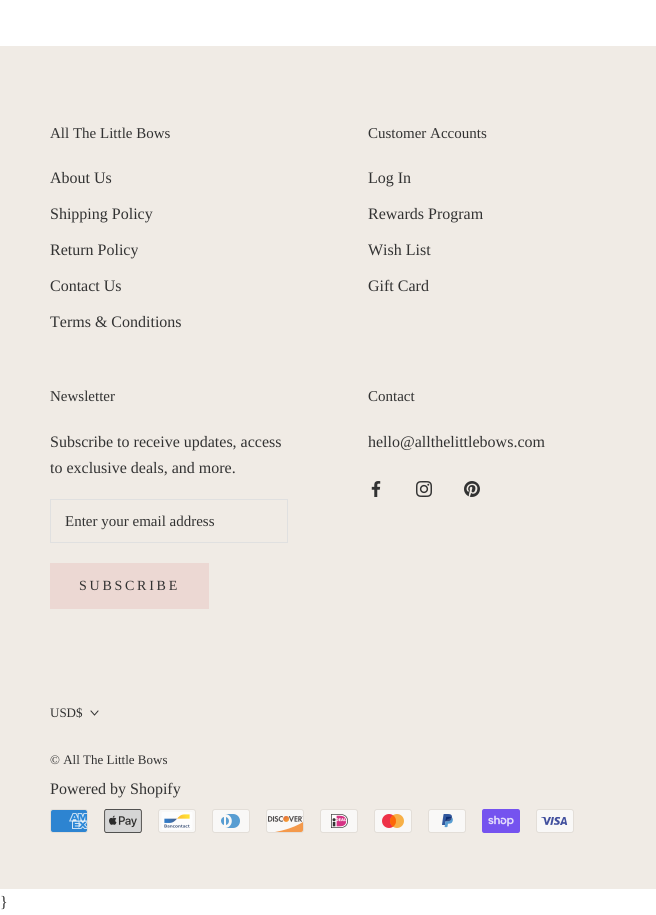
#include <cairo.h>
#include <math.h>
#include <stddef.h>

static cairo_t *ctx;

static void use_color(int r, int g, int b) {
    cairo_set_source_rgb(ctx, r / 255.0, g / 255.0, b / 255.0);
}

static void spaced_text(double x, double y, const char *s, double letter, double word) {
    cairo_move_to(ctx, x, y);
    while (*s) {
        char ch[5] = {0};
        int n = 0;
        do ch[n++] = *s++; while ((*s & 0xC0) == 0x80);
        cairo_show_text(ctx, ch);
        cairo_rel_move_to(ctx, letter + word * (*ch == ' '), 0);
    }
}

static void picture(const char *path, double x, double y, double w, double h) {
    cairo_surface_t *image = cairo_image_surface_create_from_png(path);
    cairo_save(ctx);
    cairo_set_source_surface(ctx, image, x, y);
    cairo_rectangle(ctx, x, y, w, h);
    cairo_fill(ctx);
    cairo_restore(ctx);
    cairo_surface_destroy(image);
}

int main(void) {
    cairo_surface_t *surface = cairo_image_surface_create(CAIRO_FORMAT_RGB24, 656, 915);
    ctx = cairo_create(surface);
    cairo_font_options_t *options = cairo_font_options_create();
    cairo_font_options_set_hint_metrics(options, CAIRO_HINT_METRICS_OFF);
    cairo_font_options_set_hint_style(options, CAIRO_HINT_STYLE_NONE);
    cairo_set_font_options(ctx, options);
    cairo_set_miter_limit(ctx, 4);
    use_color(255, 255, 255);
    cairo_paint(ctx);
    use_color(240, 235, 229);
    cairo_rectangle(ctx, 0, 46, 656, 843);
    cairo_fill(ctx);
    cairo_select_font_face(ctx, "Liberation Serif", CAIRO_FONT_SLANT_NORMAL, CAIRO_FONT_WEIGHT_NORMAL);
    cairo_set_font_size(ctx, 15);
    use_color(50, 50, 50);
    cairo_move_to(ctx, 50, 138);
    cairo_show_text(ctx, "All The Little Bows");
    cairo_set_font_size(ctx, 16);
    cairo_move_to(ctx, 50, 183);
    cairo_show_text(ctx, "About Us");
    cairo_move_to(ctx, 50, 219);
    cairo_show_text(ctx, "Shipping Policy");
    cairo_move_to(ctx, 50, 255);
    cairo_show_text(ctx, "Return Policy");
    cairo_move_to(ctx, 50, 291);
    cairo_show_text(ctx, "Contact Us");
    cairo_move_to(ctx, 50, 327);
    cairo_show_text(ctx, "Terms & Conditions");
    cairo_set_font_size(ctx, 15);
    cairo_move_to(ctx, 368, 138);
    cairo_show_text(ctx, "Customer Accounts");
    cairo_set_font_size(ctx, 16);
    cairo_move_to(ctx, 368, 183);
    cairo_show_text(ctx, "Log In");
    cairo_move_to(ctx, 368, 219);
    cairo_show_text(ctx, "Rewards Program");
    cairo_move_to(ctx, 368, 255);
    cairo_show_text(ctx, "Wish List");
    cairo_move_to(ctx, 368, 291);
    cairo_show_text(ctx, "Gift Card");
    cairo_set_font_size(ctx, 15);
    cairo_move_to(ctx, 50, 401);
    cairo_show_text(ctx, "Newsletter");
    cairo_set_font_size(ctx, 16);
    cairo_move_to(ctx, 50, 447);
    cairo_show_text(ctx, "Subscribe to receive updates, access");
    cairo_move_to(ctx, 50, 473);
    cairo_show_text(ctx, "to exclusive deals, and more.");
    cairo_rectangle(ctx, 50.5, 499.5, 237, 43);
    use_color(224, 224, 224);
    cairo_set_line_width(ctx, 1);
    cairo_stroke(ctx);
    cairo_set_font_size(ctx, 15);
    use_color(50, 50, 50);
    cairo_move_to(ctx, 65, 526);
    cairo_show_text(ctx, "Enter your email address");
    cairo_rectangle(ctx, 50.5, 563.5, 158, 45);
    use_color(236, 216, 211);
    cairo_stroke(ctx);
    cairo_rectangle(ctx, 51, 564, 157, 44);
    cairo_fill(ctx);
    cairo_set_font_size(ctx, 14);
    use_color(50, 50, 50);
    spaced_text(79, 590, "SUBSCRIBE", 2.75, 0);
    cairo_set_font_size(ctx, 15);
    cairo_move_to(ctx, 368, 401);
    cairo_show_text(ctx, "Contact");
    cairo_set_font_size(ctx, 16);
    cairo_move_to(ctx, 368, 447);
    cairo_show_text(ctx, "hello@allthelittlebows.com");
    picture("img1.png", 371, 481, 10, 16);
    picture("img2.png", 416, 481, 16, 16);
    picture("img3.png", 464, 481, 16, 16);
    cairo_set_font_size(ctx, 13);
    cairo_move_to(ctx, 50, 717);
    cairo_show_text(ctx, "USD$");
    cairo_new_path(ctx);
    cairo_move_to(ctx, 98, 711);
    cairo_line_to(ctx, 94.5, 715);
    cairo_line_to(ctx, 91, 711);
    cairo_set_line_cap(ctx, CAIRO_LINE_CAP_SQUARE);
    cairo_stroke(ctx);
    cairo_move_to(ctx, 50, 764);
    cairo_show_text(ctx, "© All The Little Bows");
    cairo_set_font_size(ctx, 16);
    cairo_move_to(ctx, 50, 794);
    cairo_show_text(ctx, "Powered by Shopify");
    picture("img4.png", 50, 809, 38, 24);
    picture("img5.png", 104, 809, 38, 24);
    picture("img6.png", 158, 809, 38, 24);
    picture("img7.png", 212, 809, 38, 24);
    picture("img8.png", 266, 809, 38, 24);
    picture("img9.png", 320, 809, 38, 24);
    picture("img10.png", 374, 809, 38, 24);
    picture("img11.png", 428, 809, 38, 24);
    picture("img12.png", 482, 809, 38, 24);
    picture("img13.png", 536, 809, 38, 24);
    cairo_move_to(ctx, 0, 907);
    cairo_show_text(ctx, "}");
    cairo_surface_write_to_png(surface, "result.png");
    cairo_font_options_destroy(options);
    cairo_destroy(ctx);
    cairo_surface_destroy(surface);
    return 0;
}
